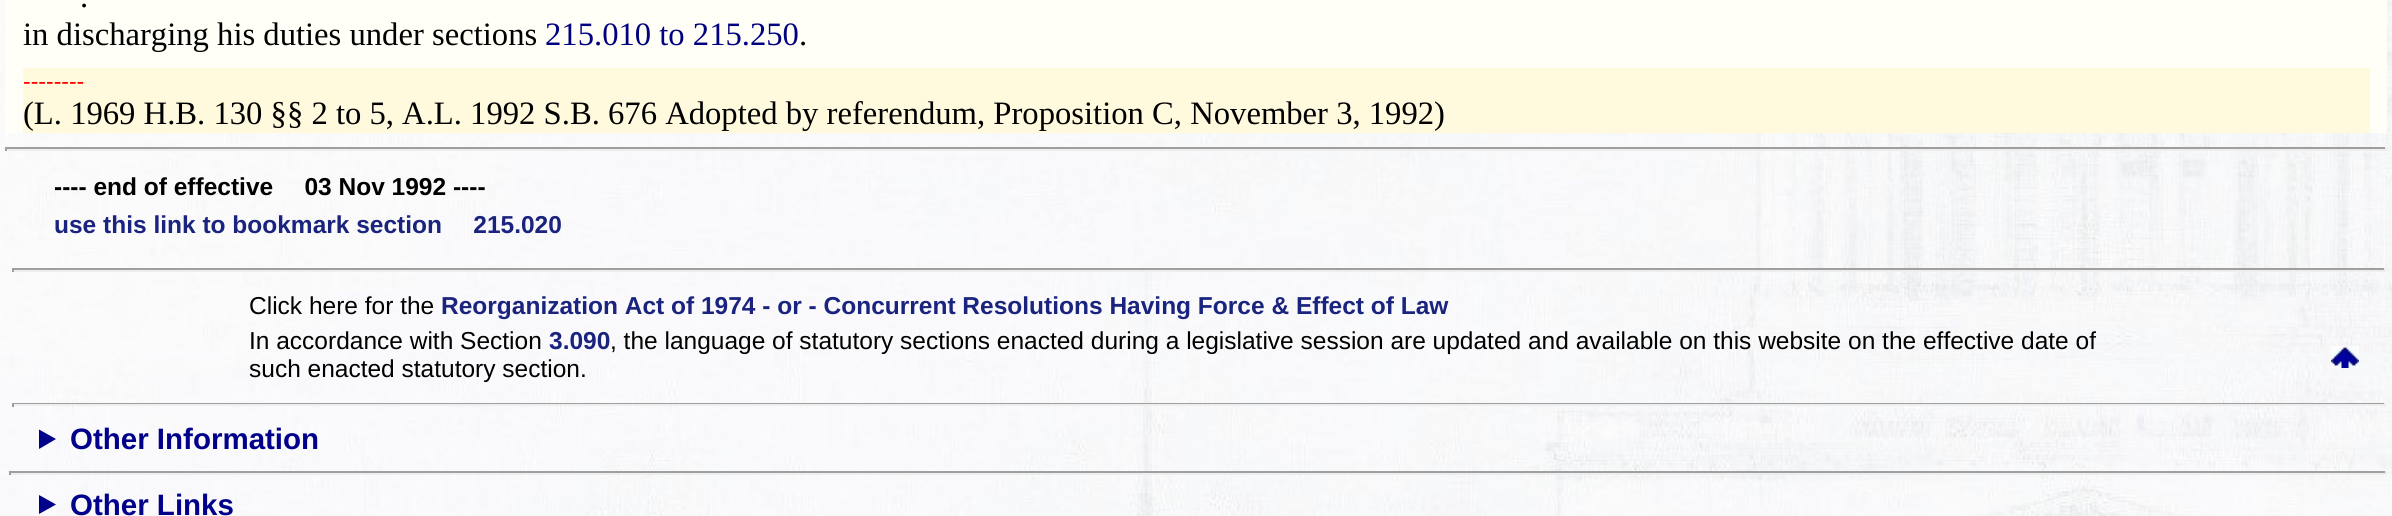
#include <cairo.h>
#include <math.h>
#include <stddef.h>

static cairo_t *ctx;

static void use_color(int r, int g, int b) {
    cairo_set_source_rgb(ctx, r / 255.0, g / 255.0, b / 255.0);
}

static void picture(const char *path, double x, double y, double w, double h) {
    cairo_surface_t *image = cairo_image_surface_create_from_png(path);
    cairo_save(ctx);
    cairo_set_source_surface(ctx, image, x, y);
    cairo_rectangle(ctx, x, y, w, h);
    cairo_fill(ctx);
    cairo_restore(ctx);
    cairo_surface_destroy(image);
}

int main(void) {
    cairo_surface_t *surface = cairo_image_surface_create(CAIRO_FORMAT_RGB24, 2392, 516);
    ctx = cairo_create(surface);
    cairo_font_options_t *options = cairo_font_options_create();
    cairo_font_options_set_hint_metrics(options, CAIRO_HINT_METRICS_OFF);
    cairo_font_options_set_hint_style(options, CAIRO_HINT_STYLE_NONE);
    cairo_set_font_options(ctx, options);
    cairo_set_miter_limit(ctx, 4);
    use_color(255, 255, 255);
    cairo_paint(ctx);
    picture("img1.png", 0, 0, 2392, 516);
    use_color(255, 255, 247);
    cairo_rectangle(ctx, 5, 0, 2382, 133);
    cairo_fill(ctx);
    cairo_select_font_face(ctx, "Liberation Serif", CAIRO_FONT_SLANT_NORMAL, CAIRO_FONT_WEIGHT_NORMAL);
    cairo_set_font_size(ctx, 32.65);
    use_color(0, 0, 0);
    cairo_move_to(ctx, 80, 7);
    cairo_show_text(ctx, ".");
    cairo_move_to(ctx, 23, 45);
    cairo_show_text(ctx, "in discharging his duties under sections");
    use_color(0, 0, 128);
    cairo_move_to(ctx, 545, 45);
    cairo_show_text(ctx, "215.010 to 215.250");
    use_color(0, 0, 0);
    cairo_move_to(ctx, 799, 45);
    cairo_show_text(ctx, ".");
    use_color(255, 250, 222);
    cairo_rectangle(ctx, 23, 68, 2347, 65);
    cairo_fill(ctx);
    cairo_select_font_face(ctx, "Liberation Sans", CAIRO_FONT_SLANT_NORMAL, CAIRO_FONT_WEIGHT_NORMAL);
    cairo_set_font_size(ctx, 23);
    use_color(255, 0, 0);
    cairo_move_to(ctx, 23, 89);
    cairo_show_text(ctx, "--------");
    cairo_select_font_face(ctx, "Liberation Serif", CAIRO_FONT_SLANT_NORMAL, CAIRO_FONT_WEIGHT_NORMAL);
    cairo_set_font_size(ctx, 32.65);
    use_color(0, 0, 0);
    cairo_move_to(ctx, 23, 124);
    cairo_show_text(ctx, "(L. 1969 H.B. 130 §§ 2 to 5, A.L. 1992 S.B. 676 Adopted by referendum, Proposition C, November 3, 1992)");
    use_color(159, 159, 159);
    cairo_rectangle(ctx, 5, 147, 2382, 2);
    cairo_fill(ctx);
    use_color(238, 238, 238);
    cairo_rectangle(ctx, 2385, 147, 2, 4);
    cairo_fill(ctx);
    cairo_rectangle(ctx, 5, 149, 2382, 2);
    cairo_fill(ctx);
    use_color(159, 159, 159);
    cairo_rectangle(ctx, 5, 147, 2, 4);
    cairo_fill(ctx);
    cairo_select_font_face(ctx, "Liberation Sans", CAIRO_FONT_SLANT_NORMAL, CAIRO_FONT_WEIGHT_BOLD);
    cairo_set_font_size(ctx, 24.5);
    use_color(0, 0, 0);
    cairo_move_to(ctx, 54, 195);
    cairo_show_text(ctx, "---- end of effective  03 Nov 1992 ----");
    use_color(26, 35, 126);
    cairo_move_to(ctx, 54, 233);
    cairo_show_text(ctx, "use this link to bookmark section  215.020");
    use_color(159, 159, 159);
    cairo_rectangle(ctx, 12, 268, 2373, 2);
    cairo_fill(ctx);
    use_color(238, 238, 238);
    cairo_rectangle(ctx, 2384, 268, 2, 4);
    cairo_fill(ctx);
    cairo_rectangle(ctx, 12, 270, 2373, 2);
    cairo_fill(ctx);
    use_color(159, 159, 159);
    cairo_rectangle(ctx, 12, 268, 2, 4);
    cairo_fill(ctx);
    cairo_select_font_face(ctx, "Liberation Sans", CAIRO_FONT_SLANT_NORMAL, CAIRO_FONT_WEIGHT_NORMAL);
    use_color(0, 0, 0);
    cairo_move_to(ctx, 249, 314);
    cairo_show_text(ctx, "Click here for the");
    cairo_select_font_face(ctx, "Liberation Sans", CAIRO_FONT_SLANT_NORMAL, CAIRO_FONT_WEIGHT_BOLD);
    use_color(26, 35, 126);
    cairo_move_to(ctx, 441, 314);
    cairo_show_text(ctx, "Reorganization Act of 1974 - or - Concurrent Resolutions Having Force & Effect of Law");
    cairo_select_font_face(ctx, "Liberation Sans", CAIRO_FONT_SLANT_NORMAL, CAIRO_FONT_WEIGHT_NORMAL);
    use_color(0, 0, 0);
    cairo_move_to(ctx, 249, 349);
    cairo_show_text(ctx, "In accordance with Section");
    cairo_select_font_face(ctx, "Liberation Sans", CAIRO_FONT_SLANT_NORMAL, CAIRO_FONT_WEIGHT_BOLD);
    use_color(26, 35, 126);
    cairo_move_to(ctx, 549, 349);
    cairo_show_text(ctx, "3.090");
    cairo_select_font_face(ctx, "Liberation Sans", CAIRO_FONT_SLANT_NORMAL, CAIRO_FONT_WEIGHT_NORMAL);
    use_color(0, 0, 0);
    cairo_move_to(ctx, 610, 349);
    cairo_show_text(ctx, ", the language of statutory sections enacted during a legislative session are updated and available on this website on the effective date of");
    cairo_move_to(ctx, 249, 377);
    cairo_show_text(ctx, "such enacted statutory section.");
    picture("img2.png", 2331, 346, 28, 22);
    use_color(159, 159, 159);
    cairo_rectangle(ctx, 12, 403, 2373, 1);
    cairo_fill(ctx);
    use_color(238, 238, 238);
    cairo_rectangle(ctx, 2384, 403, 2, 4);
    cairo_fill(ctx);
    cairo_rectangle(ctx, 12, 404, 2373, 2);
    cairo_fill(ctx);
    use_color(159, 159, 159);
    cairo_rectangle(ctx, 12, 403, 2, 4);
    cairo_fill(ctx);
    use_color(0, 0, 139);
    cairo_new_path(ctx);
    cairo_move_to(ctx, 39, 429.5);
    cairo_line_to(ctx, 56, 439);
    cairo_line_to(ctx, 39, 449);
    cairo_close_path(ctx);
    cairo_fill(ctx);
    cairo_select_font_face(ctx, "Liberation Sans", CAIRO_FONT_SLANT_NORMAL, CAIRO_FONT_WEIGHT_BOLD);
    cairo_set_font_size(ctx, 29.5);
    cairo_move_to(ctx, 70, 449);
    cairo_show_text(ctx, "Other Information");
    use_color(159, 159, 159);
    cairo_rectangle(ctx, 9, 471, 2378, 2);
    cairo_fill(ctx);
    use_color(238, 238, 238);
    cairo_rectangle(ctx, 2385, 471, 2, 4);
    cairo_fill(ctx);
    cairo_rectangle(ctx, 9, 473, 2378, 2);
    cairo_fill(ctx);
    use_color(159, 159, 159);
    cairo_rectangle(ctx, 9, 471, 2, 4);
    cairo_fill(ctx);
    use_color(0, 0, 139);
    cairo_new_path(ctx);
    cairo_move_to(ctx, 39, 495);
    cairo_line_to(ctx, 56, 504.5);
    cairo_line_to(ctx, 39, 514);
    cairo_close_path(ctx);
    cairo_fill(ctx);
    cairo_move_to(ctx, 70, 515);
    cairo_show_text(ctx, "Other Links");
    cairo_surface_write_to_png(surface, "result.png");
    cairo_font_options_destroy(options);
    cairo_destroy(ctx);
    cairo_surface_destroy(surface);
    return 0;
}
